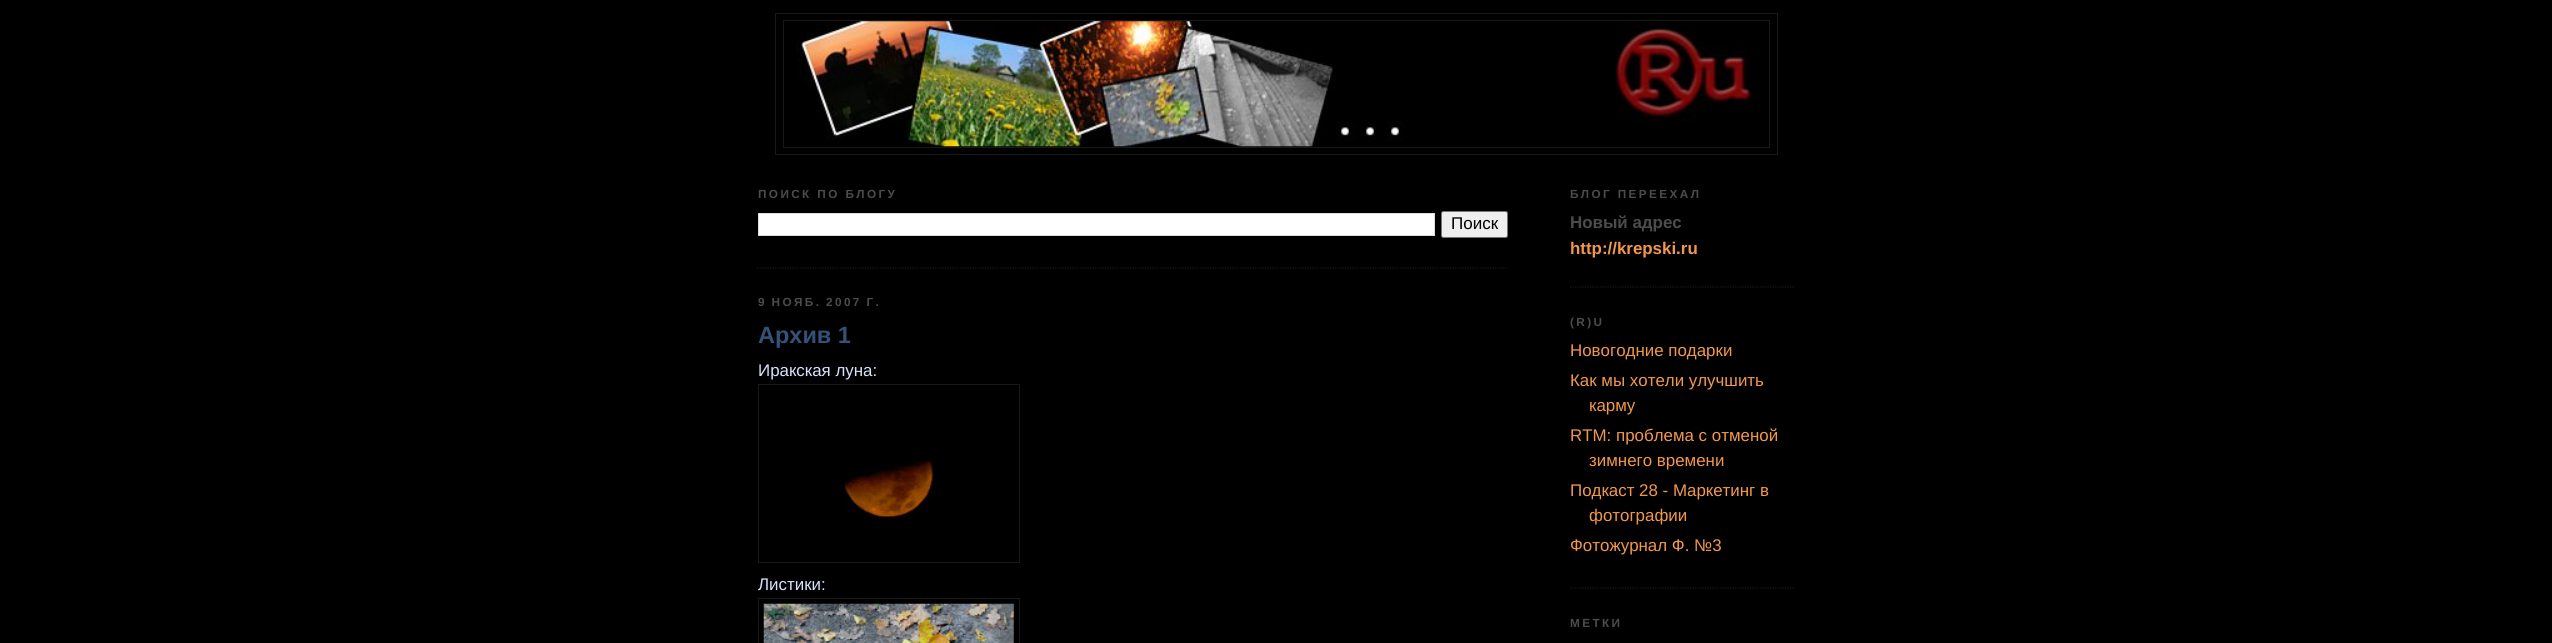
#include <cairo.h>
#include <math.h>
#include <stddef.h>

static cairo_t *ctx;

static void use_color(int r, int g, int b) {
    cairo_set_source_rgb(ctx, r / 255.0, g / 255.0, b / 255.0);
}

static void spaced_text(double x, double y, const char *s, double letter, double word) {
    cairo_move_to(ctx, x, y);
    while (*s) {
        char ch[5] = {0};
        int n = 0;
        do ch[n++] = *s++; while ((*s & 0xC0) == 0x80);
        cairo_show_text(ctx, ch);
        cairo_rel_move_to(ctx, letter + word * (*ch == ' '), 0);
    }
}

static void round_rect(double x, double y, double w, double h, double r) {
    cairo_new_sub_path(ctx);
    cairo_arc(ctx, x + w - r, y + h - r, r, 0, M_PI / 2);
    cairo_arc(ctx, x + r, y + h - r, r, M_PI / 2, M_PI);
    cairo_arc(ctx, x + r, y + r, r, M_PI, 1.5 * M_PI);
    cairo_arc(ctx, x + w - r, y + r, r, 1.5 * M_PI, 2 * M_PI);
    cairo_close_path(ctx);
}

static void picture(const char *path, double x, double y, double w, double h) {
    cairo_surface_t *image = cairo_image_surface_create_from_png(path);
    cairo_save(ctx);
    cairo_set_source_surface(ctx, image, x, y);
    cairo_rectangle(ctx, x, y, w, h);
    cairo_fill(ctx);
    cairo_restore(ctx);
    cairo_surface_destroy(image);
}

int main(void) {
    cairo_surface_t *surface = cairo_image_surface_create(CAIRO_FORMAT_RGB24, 2552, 643);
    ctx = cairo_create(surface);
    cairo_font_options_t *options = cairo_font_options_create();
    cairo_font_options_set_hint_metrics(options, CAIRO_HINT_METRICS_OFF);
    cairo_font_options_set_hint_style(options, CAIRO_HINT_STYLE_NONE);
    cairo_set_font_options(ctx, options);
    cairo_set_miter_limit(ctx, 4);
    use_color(0, 0, 0);
    cairo_paint(ctx);
    cairo_rectangle(ctx, 775.5, 13.5, 1002, 141);
    use_color(25, 25, 25);
    cairo_set_line_width(ctx, 1);
    cairo_stroke(ctx);
    cairo_rectangle(ctx, 783.5, 20.5, 986, 127);
    cairo_stroke(ctx);
    picture("img1.png", 796, 21, 960, 126);
    cairo_new_path(ctx);
    cairo_move_to(ctx, 757.5, 268);
    cairo_line_to(ctx, 1507.5, 268);
    cairo_set_line_width(ctx, 1.2);
    cairo_set_dash(ctx, (double[]){1.25, 1.25}, 2, 0);
    cairo_stroke(ctx);
    cairo_select_font_face(ctx, "Liberation Sans", CAIRO_FONT_SLANT_NORMAL, CAIRO_FONT_WEIGHT_BOLD);
    cairo_set_font_size(ctx, 11.75);
    use_color(76, 76, 76);
    spaced_text(758, 198, "ПОИСК ПО БЛОГУ", 2.4, 0);
    use_color(255, 255, 255);
    cairo_rectangle(ctx, 758.5, 213.5, 676, 22);
    cairo_fill_preserve(ctx);
    use_color(221, 221, 221);
    cairo_set_line_width(ctx, 1);
    cairo_set_dash(ctx, NULL, 0, 0);
    cairo_stroke(ctx);
    use_color(239, 239, 239);
    round_rect(1441.5, 211.5, 66, 26, 2);
    cairo_fill_preserve(ctx);
    use_color(118, 118, 118);
    cairo_stroke(ctx);
    cairo_select_font_face(ctx, "Liberation Sans", CAIRO_FONT_SLANT_NORMAL, CAIRO_FONT_WEIGHT_NORMAL);
    cairo_set_font_size(ctx, 17);
    use_color(0, 0, 0);
    cairo_move_to(ctx, 1451, 229);
    cairo_show_text(ctx, "Поиск");
    cairo_select_font_face(ctx, "Liberation Sans", CAIRO_FONT_SLANT_NORMAL, CAIRO_FONT_WEIGHT_BOLD);
    cairo_set_font_size(ctx, 11.75);
    use_color(76, 76, 76);
    spaced_text(758, 306, "9 НОЯБ. 2007 Г.", 2.4, -1);
    cairo_set_font_size(ctx, 23.5);
    use_color(50, 82, 122);
    cairo_move_to(ctx, 758, 343);
    cairo_show_text(ctx, "Архив 1");
    cairo_select_font_face(ctx, "Liberation Sans", CAIRO_FONT_SLANT_NORMAL, CAIRO_FONT_WEIGHT_NORMAL);
    cairo_set_font_size(ctx, 16.9);
    use_color(216, 226, 255);
    cairo_move_to(ctx, 758, 376);
    cairo_show_text(ctx, "Иракская луна:");
    cairo_rectangle(ctx, 758.5, 384.5, 261, 178);
    use_color(25, 25, 25);
    cairo_stroke(ctx);
    picture("img2.png", 844, 460, 90, 60);
    use_color(216, 226, 255);
    cairo_move_to(ctx, 758, 590);
    cairo_show_text(ctx, "Листики:");
    cairo_rectangle(ctx, 758.5, 598.5, 261, 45);
    use_color(25, 25, 25);
    cairo_stroke(ctx);
    picture("img3.png", 763, 603, 251, 40);
    cairo_new_path(ctx);
    cairo_move_to(ctx, 1570, 287);
    cairo_line_to(ctx, 1795, 287);
    cairo_set_line_width(ctx, 1.2);
    cairo_set_dash(ctx, (double[]){1.25, 1.25}, 2, 0);
    cairo_stroke(ctx);
    cairo_select_font_face(ctx, "Liberation Sans", CAIRO_FONT_SLANT_NORMAL, CAIRO_FONT_WEIGHT_BOLD);
    cairo_set_font_size(ctx, 11.75);
    use_color(76, 76, 76);
    spaced_text(1570, 198, "БЛОГ ПЕРЕЕХАЛ", 2.4, 0);
    cairo_set_font_size(ctx, 16.9);
    cairo_move_to(ctx, 1570, 228);
    cairo_show_text(ctx, "Новый адрес");
    use_color(242, 152, 76);
    cairo_move_to(ctx, 1570, 254);
    cairo_show_text(ctx, "http://krepski.ru");
    cairo_new_path(ctx);
    cairo_move_to(ctx, 1570, 588);
    cairo_line_to(ctx, 1795, 588);
    use_color(25, 25, 25);
    cairo_stroke(ctx);
    cairo_set_font_size(ctx, 11.75);
    use_color(76, 76, 76);
    spaced_text(1570, 326, "(R)U", 2.4, 0);
    cairo_select_font_face(ctx, "Liberation Sans", CAIRO_FONT_SLANT_NORMAL, CAIRO_FONT_WEIGHT_NORMAL);
    cairo_set_font_size(ctx, 16.9);
    use_color(242, 152, 76);
    cairo_move_to(ctx, 1570, 356);
    cairo_show_text(ctx, "Новогодние подарки");
    cairo_move_to(ctx, 1570, 386);
    cairo_show_text(ctx, "Как мы хотели улучшить");
    cairo_move_to(ctx, 1589, 411);
    cairo_show_text(ctx, "карму");
    cairo_move_to(ctx, 1570, 441);
    cairo_show_text(ctx, "RTM: проблема с отменой");
    cairo_move_to(ctx, 1589, 466);
    cairo_show_text(ctx, "зимнего времени");
    cairo_move_to(ctx, 1570, 496);
    cairo_show_text(ctx, "Подкаст 28 - Маркетинг в");
    cairo_move_to(ctx, 1589, 521);
    cairo_show_text(ctx, "фотографии");
    cairo_move_to(ctx, 1570, 551);
    cairo_show_text(ctx, "Фотожурнал Ф. №3");
    cairo_select_font_face(ctx, "Liberation Sans", CAIRO_FONT_SLANT_NORMAL, CAIRO_FONT_WEIGHT_BOLD);
    cairo_set_font_size(ctx, 11.75);
    use_color(76, 76, 76);
    spaced_text(1570, 627, "МЕТКИ", 2.4, 0);
    cairo_surface_write_to_png(surface, "result.png");
    cairo_font_options_destroy(options);
    cairo_destroy(ctx);
    cairo_surface_destroy(surface);
    return 0;
}
